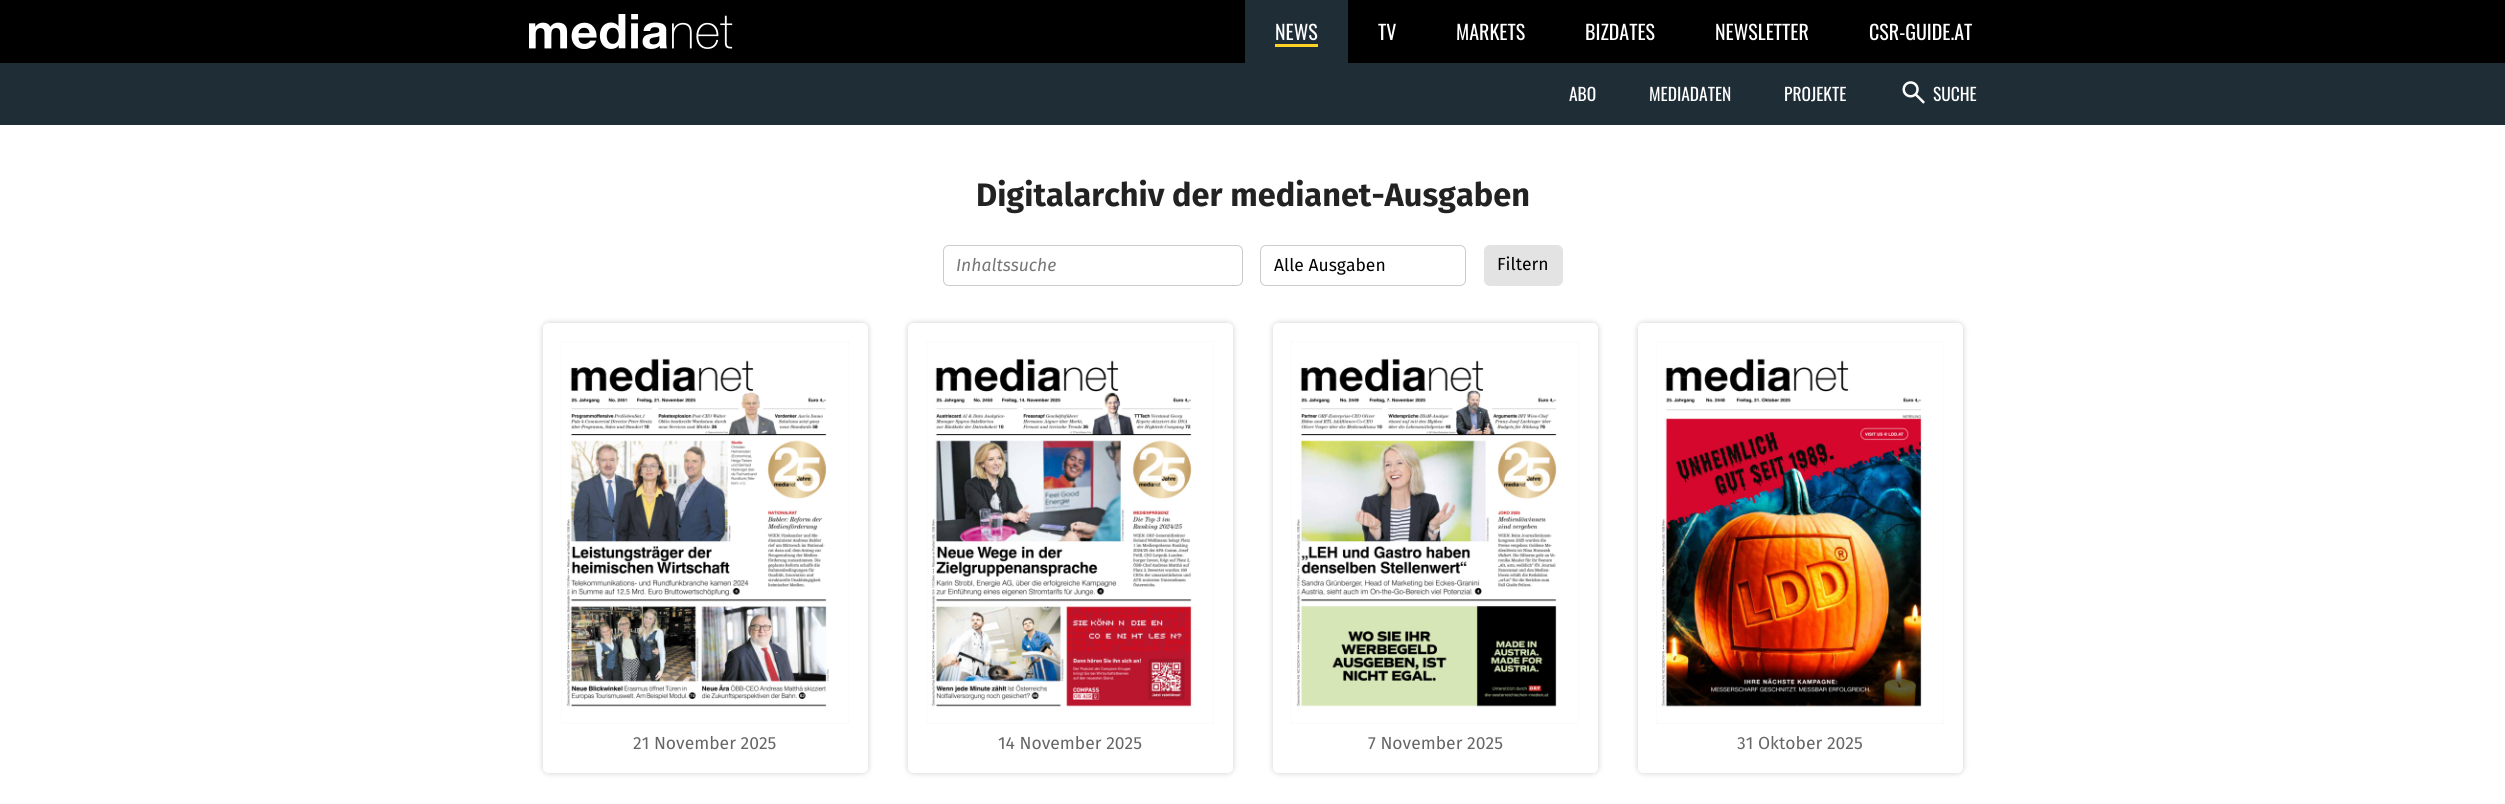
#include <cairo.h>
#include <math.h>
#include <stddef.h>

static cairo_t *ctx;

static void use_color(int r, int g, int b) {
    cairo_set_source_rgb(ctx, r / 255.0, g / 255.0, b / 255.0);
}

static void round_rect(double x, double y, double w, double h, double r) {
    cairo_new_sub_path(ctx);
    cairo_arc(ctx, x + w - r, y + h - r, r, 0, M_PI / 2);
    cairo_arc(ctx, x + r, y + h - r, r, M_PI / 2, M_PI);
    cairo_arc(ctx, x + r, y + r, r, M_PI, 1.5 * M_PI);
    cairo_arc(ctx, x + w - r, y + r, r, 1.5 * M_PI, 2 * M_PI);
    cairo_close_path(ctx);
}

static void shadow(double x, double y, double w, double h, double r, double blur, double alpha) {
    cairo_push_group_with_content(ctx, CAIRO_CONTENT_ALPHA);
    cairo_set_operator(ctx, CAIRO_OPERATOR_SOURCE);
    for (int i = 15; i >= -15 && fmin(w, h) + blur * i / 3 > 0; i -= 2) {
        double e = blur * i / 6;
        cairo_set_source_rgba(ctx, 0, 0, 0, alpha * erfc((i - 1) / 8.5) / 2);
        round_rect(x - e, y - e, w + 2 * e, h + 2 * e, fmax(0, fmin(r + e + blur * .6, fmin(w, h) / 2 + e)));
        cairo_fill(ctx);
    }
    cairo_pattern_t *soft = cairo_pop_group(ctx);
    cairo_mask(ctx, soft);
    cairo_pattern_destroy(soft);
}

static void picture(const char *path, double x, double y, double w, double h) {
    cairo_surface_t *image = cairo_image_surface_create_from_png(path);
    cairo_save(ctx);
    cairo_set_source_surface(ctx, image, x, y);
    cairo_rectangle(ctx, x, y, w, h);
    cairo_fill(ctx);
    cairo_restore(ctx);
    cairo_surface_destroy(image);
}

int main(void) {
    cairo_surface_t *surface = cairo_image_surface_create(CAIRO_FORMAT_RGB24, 2505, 804);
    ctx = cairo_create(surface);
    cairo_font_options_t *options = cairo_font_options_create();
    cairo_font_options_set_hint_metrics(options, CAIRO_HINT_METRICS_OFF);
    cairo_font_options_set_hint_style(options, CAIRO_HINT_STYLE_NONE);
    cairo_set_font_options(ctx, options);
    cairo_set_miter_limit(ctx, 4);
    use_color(255, 255, 255);
    cairo_paint(ctx);
    use_color(0, 0, 0);
    cairo_rectangle(ctx, 0, 0, 2505, 63);
    cairo_fill(ctx);
    picture("img1.png", 529, 14, 204, 35);
    use_color(31, 45, 55);
    cairo_rectangle(ctx, 1245, 0, 103, 63);
    cairo_fill(ctx);
    cairo_select_font_face(ctx, "Oswald", CAIRO_FONT_SLANT_NORMAL, CAIRO_FONT_WEIGHT_NORMAL);
    cairo_set_font_size(ctx, 20);
    use_color(255, 255, 255);
    cairo_move_to(ctx, 1275, 40);
    cairo_show_text(ctx, "NEWS");
    use_color(255, 209, 37);
    cairo_rectangle(ctx, 1275, 44, 43, 3);
    cairo_fill(ctx);
    use_color(255, 255, 255);
    cairo_move_to(ctx, 1378, 40);
    cairo_show_text(ctx, "TV");
    cairo_move_to(ctx, 1456, 40);
    cairo_show_text(ctx, "MARKETS");
    cairo_move_to(ctx, 1585, 40);
    cairo_show_text(ctx, "BIZDATES");
    cairo_move_to(ctx, 1715, 40);
    cairo_show_text(ctx, "NEWSLETTER");
    cairo_move_to(ctx, 1869, 40);
    cairo_show_text(ctx, "CSR-GUIDE.AT");
    use_color(31, 45, 55);
    cairo_rectangle(ctx, 0, 63, 2505, 62);
    cairo_fill(ctx);
    cairo_set_font_size(ctx, 17.5);
    use_color(255, 255, 255);
    cairo_move_to(ctx, 1569, 101);
    cairo_show_text(ctx, "ABO");
    cairo_move_to(ctx, 1649, 101);
    cairo_show_text(ctx, "MEDIADATEN");
    cairo_move_to(ctx, 1784, 101);
    cairo_show_text(ctx, "PROJEKTE");
    picture("img2.png", 1902, 81, 23, 23);
    cairo_move_to(ctx, 1933, 101);
    cairo_show_text(ctx, "SUCHE");
    cairo_select_font_face(ctx, "Fira Sans", CAIRO_FONT_SLANT_NORMAL, CAIRO_FONT_WEIGHT_BOLD);
    cairo_set_font_size(ctx, 32.5);
    use_color(34, 34, 34);
    cairo_move_to(ctx, 976, 206);
    cairo_show_text(ctx, "Digitalarchiv der medianet-Ausgaben");
    round_rect(943.5, 245.5, 299, 40, 5.5);
    use_color(204, 204, 204);
    cairo_set_line_width(ctx, 1);
    cairo_stroke(ctx);
    cairo_select_font_face(ctx, "Fira Sans", CAIRO_FONT_SLANT_ITALIC, CAIRO_FONT_WEIGHT_NORMAL);
    cairo_set_font_size(ctx, 17.5);
    use_color(119, 119, 119);
    cairo_move_to(ctx, 956, 271);
    cairo_show_text(ctx, "Inhaltssuche");
    round_rect(1260.5, 245.5, 205, 40, 5.5);
    use_color(204, 204, 204);
    cairo_stroke(ctx);
    cairo_select_font_face(ctx, "Fira Sans", CAIRO_FONT_SLANT_NORMAL, CAIRO_FONT_WEIGHT_NORMAL);
    use_color(0, 0, 0);
    cairo_move_to(ctx, 1274, 271);
    cairo_show_text(ctx, "Alle Ausgaben");
    use_color(227, 227, 227);
    round_rect(1484, 245, 79, 41, 6);
    cairo_fill(ctx);
    use_color(0, 0, 0);
    cairo_move_to(ctx, 1497, 270);
    cairo_show_text(ctx, "Filtern");
    cairo_save(ctx);
    cairo_set_fill_rule(ctx, CAIRO_FILL_RULE_EVEN_ODD);
    cairo_new_path(ctx);
    cairo_move_to(ctx, 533, 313);
    cairo_line_to(ctx, 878, 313);
    cairo_line_to(ctx, 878, 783);
    cairo_line_to(ctx, 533, 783);
    cairo_close_path(ctx);
    cairo_move_to(ctx, 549, 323);
    cairo_line_to(ctx, 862, 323);
    cairo_curve_to(ctx, 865.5, 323, 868, 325.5, 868, 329);
    cairo_line_to(ctx, 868, 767);
    cairo_curve_to(ctx, 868, 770.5, 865.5, 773, 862, 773);
    cairo_line_to(ctx, 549, 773);
    cairo_curve_to(ctx, 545.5, 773, 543, 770.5, 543, 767);
    cairo_line_to(ctx, 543, 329);
    cairo_curve_to(ctx, 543, 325.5, 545.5, 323, 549, 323);
    cairo_close_path(ctx);
    cairo_clip(ctx);
    use_color(0, 0, 0);
    shadow(543, 323, 325, 450, 6, 3, 0.2);
    cairo_restore(ctx);
    use_color(240, 240, 240);
    cairo_rectangle(ctx, 561, 341, 288, 383);
    cairo_fill(ctx);
    picture("img3.png", 561, 341, 288, 383);
    use_color(102, 102, 102);
    cairo_move_to(ctx, 633, 749);
    cairo_show_text(ctx, "21 November 2025");
    cairo_save(ctx);
    cairo_set_fill_rule(ctx, CAIRO_FILL_RULE_EVEN_ODD);
    cairo_new_path(ctx);
    cairo_move_to(ctx, 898, 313);
    cairo_line_to(ctx, 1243, 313);
    cairo_line_to(ctx, 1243, 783);
    cairo_line_to(ctx, 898, 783);
    cairo_close_path(ctx);
    cairo_move_to(ctx, 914, 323);
    cairo_line_to(ctx, 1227, 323);
    cairo_curve_to(ctx, 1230.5, 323, 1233, 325.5, 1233, 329);
    cairo_line_to(ctx, 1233, 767);
    cairo_curve_to(ctx, 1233, 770.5, 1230.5, 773, 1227, 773);
    cairo_line_to(ctx, 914, 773);
    cairo_curve_to(ctx, 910.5, 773, 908, 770.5, 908, 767);
    cairo_line_to(ctx, 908, 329);
    cairo_curve_to(ctx, 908, 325.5, 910.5, 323, 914, 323);
    cairo_close_path(ctx);
    cairo_clip(ctx);
    use_color(0, 0, 0);
    shadow(908, 323, 325, 450, 6, 3, 0.2);
    cairo_restore(ctx);
    use_color(240, 240, 240);
    cairo_rectangle(ctx, 926, 341, 288, 383);
    cairo_fill(ctx);
    picture("img4.png", 926, 341, 288, 383);
    use_color(102, 102, 102);
    cairo_move_to(ctx, 998, 749);
    cairo_show_text(ctx, "14 November 2025");
    cairo_save(ctx);
    cairo_set_fill_rule(ctx, CAIRO_FILL_RULE_EVEN_ODD);
    cairo_new_path(ctx);
    cairo_move_to(ctx, 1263, 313);
    cairo_line_to(ctx, 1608, 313);
    cairo_line_to(ctx, 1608, 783);
    cairo_line_to(ctx, 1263, 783);
    cairo_close_path(ctx);
    cairo_move_to(ctx, 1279, 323);
    cairo_line_to(ctx, 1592, 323);
    cairo_curve_to(ctx, 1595.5, 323, 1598, 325.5, 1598, 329);
    cairo_line_to(ctx, 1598, 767);
    cairo_curve_to(ctx, 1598, 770.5, 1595.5, 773, 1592, 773);
    cairo_line_to(ctx, 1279, 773);
    cairo_curve_to(ctx, 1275.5, 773, 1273, 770.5, 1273, 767);
    cairo_line_to(ctx, 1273, 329);
    cairo_curve_to(ctx, 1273, 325.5, 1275.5, 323, 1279, 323);
    cairo_close_path(ctx);
    cairo_clip(ctx);
    use_color(0, 0, 0);
    shadow(1273, 323, 325, 450, 6, 3, 0.2);
    cairo_restore(ctx);
    use_color(240, 240, 240);
    cairo_rectangle(ctx, 1291, 341, 288, 383);
    cairo_fill(ctx);
    picture("img5.png", 1291, 341, 288, 383);
    use_color(102, 102, 102);
    cairo_move_to(ctx, 1368, 749);
    cairo_show_text(ctx, "7 November 2025");
    cairo_save(ctx);
    cairo_set_fill_rule(ctx, CAIRO_FILL_RULE_EVEN_ODD);
    cairo_new_path(ctx);
    cairo_move_to(ctx, 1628, 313);
    cairo_line_to(ctx, 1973, 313);
    cairo_line_to(ctx, 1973, 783);
    cairo_line_to(ctx, 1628, 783);
    cairo_close_path(ctx);
    cairo_move_to(ctx, 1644, 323);
    cairo_line_to(ctx, 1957, 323);
    cairo_curve_to(ctx, 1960.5, 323, 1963, 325.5, 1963, 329);
    cairo_line_to(ctx, 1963, 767);
    cairo_curve_to(ctx, 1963, 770.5, 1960.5, 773, 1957, 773);
    cairo_line_to(ctx, 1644, 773);
    cairo_curve_to(ctx, 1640.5, 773, 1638, 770.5, 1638, 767);
    cairo_line_to(ctx, 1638, 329);
    cairo_curve_to(ctx, 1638, 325.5, 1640.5, 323, 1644, 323);
    cairo_close_path(ctx);
    cairo_clip(ctx);
    use_color(0, 0, 0);
    shadow(1638, 323, 325, 450, 6, 3, 0.2);
    cairo_restore(ctx);
    use_color(240, 240, 240);
    cairo_rectangle(ctx, 1656, 341, 288, 383);
    cairo_fill(ctx);
    picture("img6.png", 1656, 341, 288, 383);
    use_color(102, 102, 102);
    cairo_move_to(ctx, 1737, 749);
    cairo_show_text(ctx, "31 Oktober 2025");
    cairo_surface_write_to_png(surface, "result.png");
    cairo_font_options_destroy(options);
    cairo_destroy(ctx);
    cairo_surface_destroy(surface);
    return 0;
}
